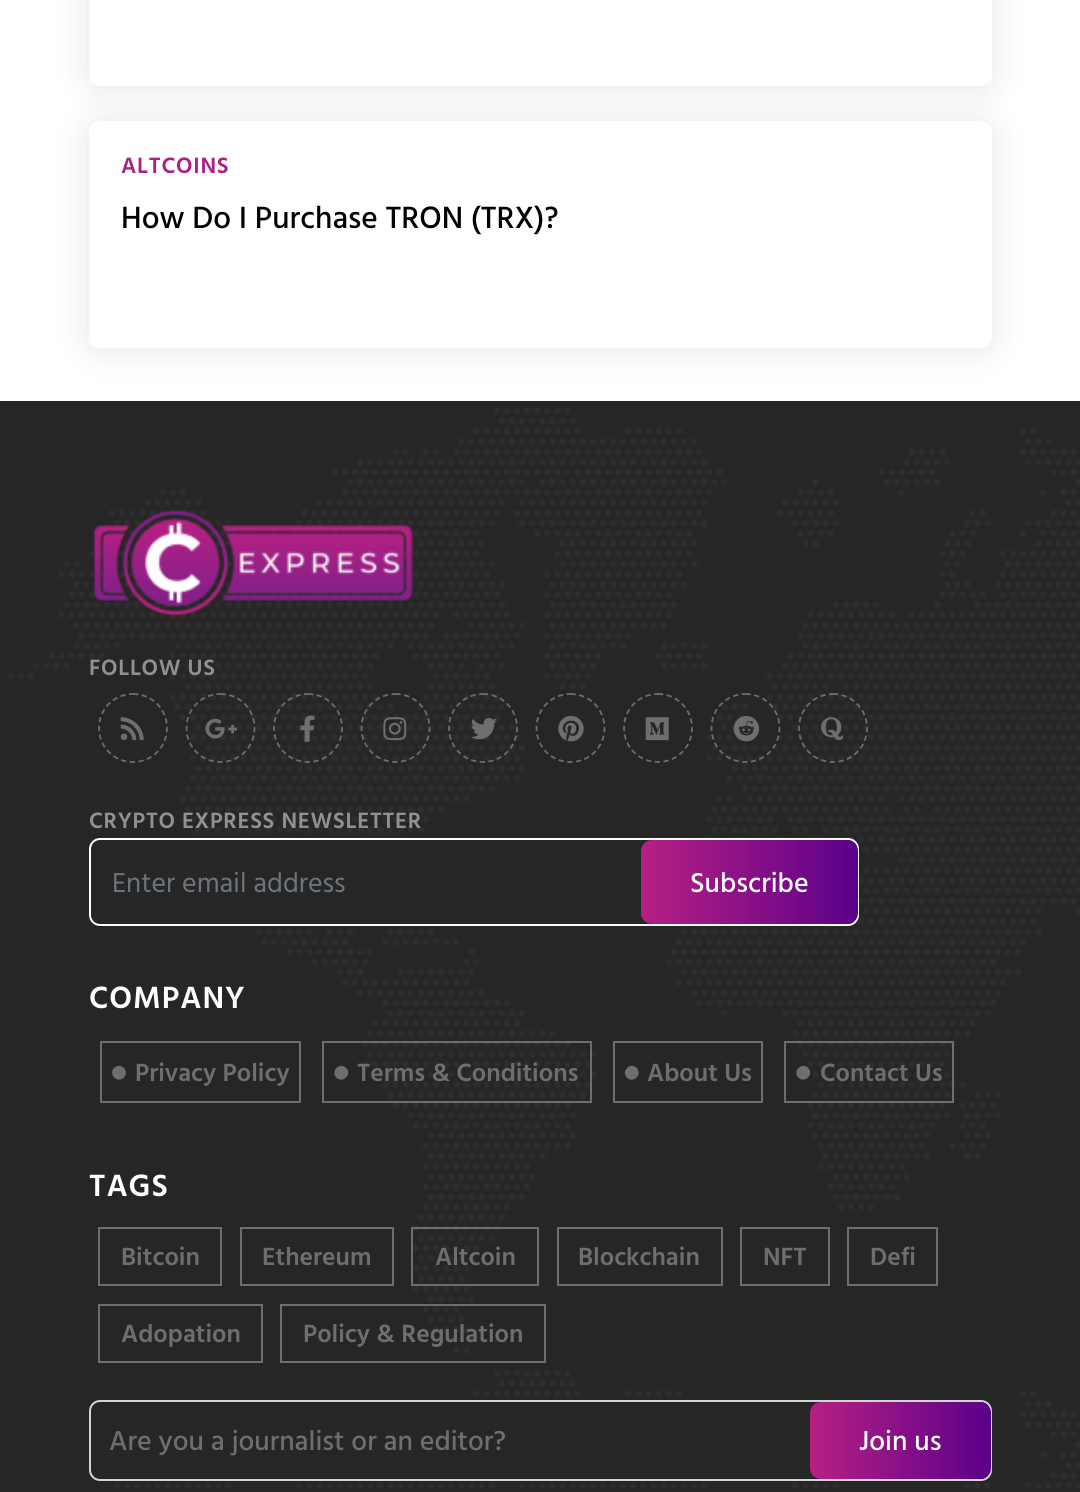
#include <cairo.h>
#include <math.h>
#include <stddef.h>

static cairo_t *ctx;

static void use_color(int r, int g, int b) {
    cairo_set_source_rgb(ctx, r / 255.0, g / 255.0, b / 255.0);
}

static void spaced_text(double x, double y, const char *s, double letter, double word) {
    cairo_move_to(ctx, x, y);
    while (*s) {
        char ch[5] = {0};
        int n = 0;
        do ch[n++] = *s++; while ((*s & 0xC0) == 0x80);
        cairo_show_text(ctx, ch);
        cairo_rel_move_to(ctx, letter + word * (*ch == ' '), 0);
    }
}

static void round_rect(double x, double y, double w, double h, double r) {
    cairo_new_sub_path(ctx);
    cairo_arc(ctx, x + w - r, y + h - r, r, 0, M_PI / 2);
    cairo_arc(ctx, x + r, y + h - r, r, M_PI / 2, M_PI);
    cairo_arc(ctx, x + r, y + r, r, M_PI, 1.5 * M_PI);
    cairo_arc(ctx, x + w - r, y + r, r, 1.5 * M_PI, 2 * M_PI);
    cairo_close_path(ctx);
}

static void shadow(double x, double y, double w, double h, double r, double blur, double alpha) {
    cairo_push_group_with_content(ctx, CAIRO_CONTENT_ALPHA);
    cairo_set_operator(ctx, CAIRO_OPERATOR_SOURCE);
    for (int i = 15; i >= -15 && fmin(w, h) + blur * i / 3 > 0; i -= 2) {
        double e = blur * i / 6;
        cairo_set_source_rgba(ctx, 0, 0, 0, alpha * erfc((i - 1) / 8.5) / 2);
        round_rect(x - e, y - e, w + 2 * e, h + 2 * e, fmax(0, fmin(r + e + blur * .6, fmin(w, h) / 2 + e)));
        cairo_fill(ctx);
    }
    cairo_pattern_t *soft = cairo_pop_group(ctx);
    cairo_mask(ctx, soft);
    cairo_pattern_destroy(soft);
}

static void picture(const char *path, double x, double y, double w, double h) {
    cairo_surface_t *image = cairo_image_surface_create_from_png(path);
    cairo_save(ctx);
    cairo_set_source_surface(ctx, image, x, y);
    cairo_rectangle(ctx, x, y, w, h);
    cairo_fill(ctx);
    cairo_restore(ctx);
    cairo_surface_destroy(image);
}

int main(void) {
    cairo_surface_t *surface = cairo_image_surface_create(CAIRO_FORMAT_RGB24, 1080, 1492);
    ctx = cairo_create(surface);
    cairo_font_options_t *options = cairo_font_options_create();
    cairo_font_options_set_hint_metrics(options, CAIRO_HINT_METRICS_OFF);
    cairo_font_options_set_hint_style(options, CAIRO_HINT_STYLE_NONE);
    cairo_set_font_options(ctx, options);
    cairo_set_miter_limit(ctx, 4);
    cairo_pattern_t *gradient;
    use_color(255, 255, 255);
    cairo_paint(ctx);
    use_color(0, 0, 0);
    shadow(89, -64, 903, 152, 11, 17.5, 0.1);
    use_color(255, 255, 255);
    round_rect(89, -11, 903, 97, 11);
    cairo_fill(ctx);
    use_color(38, 38, 38);
    cairo_rectangle(ctx, 0, 401, 1080, 1091);
    cairo_fill(ctx);
    use_color(0, 0, 0);
    shadow(89, 123, 903, 227, 11, 17.5, 0.1);
    use_color(255, 255, 255);
    round_rect(89, 121, 903, 227, 11);
    cairo_fill(ctx);
    cairo_select_font_face(ctx, "Hind Vadodara SemiBold", CAIRO_FONT_SLANT_NORMAL, CAIRO_FONT_WEIGHT_NORMAL);
    cairo_set_font_size(ctx, 22.75);
    use_color(170, 32, 132);
    spaced_text(121, 173, "ALTCOINS", 0.75, 0);
    cairo_select_font_face(ctx, "Hind Vadodara Medium", CAIRO_FONT_SLANT_NORMAL, CAIRO_FONT_WEIGHT_NORMAL);
    cairo_set_font_size(ctx, 31.5);
    use_color(0, 0, 0);
    cairo_move_to(ctx, 121, 228);
    cairo_show_text(ctx, "How Do I Purchase TRON (TRX)?");
    picture("img1.png", 8, 408, 1072, 1081);
    picture("img2.png", 92, 509, 322, 108);
    cairo_select_font_face(ctx, "Hind Vadodara SemiBold", CAIRO_FONT_SLANT_NORMAL, CAIRO_FONT_WEIGHT_NORMAL);
    cairo_set_font_size(ctx, 22.75);
    use_color(145, 145, 145);
    spaced_text(89, 675, "FOLLOW US", 0.7, 0);
    cairo_new_path(ctx);
    cairo_move_to(ctx, 133, 694);
    cairo_curve_to(ctx, 152, 694, 167, 709, 167, 728);
    cairo_curve_to(ctx, 167, 747, 152, 762, 133, 762);
    cairo_curve_to(ctx, 114, 762, 99, 747, 99, 728);
    cairo_curve_to(ctx, 99, 709, 114, 694, 133, 694);
    cairo_close_path(ctx);
    use_color(110, 110, 110);
    cairo_set_line_width(ctx, 1.8);
    cairo_set_dash(ctx, (double[]){5.25, 3.5}, 2, 0);
    cairo_stroke(ctx);
    picture("img3.png", 120, 717, 24, 24);
    cairo_new_path(ctx);
    cairo_move_to(ctx, 220.5, 694);
    cairo_curve_to(ctx, 239.5, 694, 254.5, 709, 254.5, 728);
    cairo_curve_to(ctx, 254.5, 747, 239.5, 762, 220.5, 762);
    cairo_curve_to(ctx, 201.5, 762, 186.5, 747, 186.5, 728);
    cairo_curve_to(ctx, 186.5, 709, 201.5, 694, 220.5, 694);
    cairo_close_path(ctx);
    cairo_stroke(ctx);
    picture("img4.png", 205, 718, 32, 21);
    cairo_new_path(ctx);
    cairo_move_to(ctx, 308, 694);
    cairo_curve_to(ctx, 327, 694, 342, 709, 342, 728);
    cairo_curve_to(ctx, 342, 747, 327, 762, 308, 762);
    cairo_curve_to(ctx, 289, 762, 274, 747, 274, 728);
    cairo_curve_to(ctx, 274, 709, 289, 694, 308, 694);
    cairo_close_path(ctx);
    cairo_stroke(ctx);
    picture("img5.png", 300, 715, 15, 27);
    cairo_new_path(ctx);
    cairo_move_to(ctx, 395.5, 694);
    cairo_curve_to(ctx, 414.5, 694, 429.5, 709, 429.5, 728);
    cairo_curve_to(ctx, 429.5, 747, 414.5, 762, 395.5, 762);
    cairo_curve_to(ctx, 376.5, 762, 361.5, 747, 361.5, 728);
    cairo_curve_to(ctx, 361.5, 709, 376.5, 694, 395.5, 694);
    cairo_close_path(ctx);
    cairo_stroke(ctx);
    picture("img6.png", 383, 717, 24, 24);
    cairo_new_path(ctx);
    cairo_move_to(ctx, 483, 694);
    cairo_curve_to(ctx, 502, 694, 517, 709, 517, 728);
    cairo_curve_to(ctx, 517, 747, 502, 762, 483, 762);
    cairo_curve_to(ctx, 464, 762, 449, 747, 449, 728);
    cairo_curve_to(ctx, 449, 709, 464, 694, 483, 694);
    cairo_close_path(ctx);
    cairo_stroke(ctx);
    picture("img7.png", 471, 718, 26, 22);
    cairo_new_path(ctx);
    cairo_move_to(ctx, 570.5, 694);
    cairo_curve_to(ctx, 589.5, 694, 604.5, 709, 604.5, 728);
    cairo_curve_to(ctx, 604.5, 747, 589.5, 762, 570.5, 762);
    cairo_curve_to(ctx, 551.5, 762, 536.5, 747, 536.5, 728);
    cairo_curve_to(ctx, 536.5, 709, 551.5, 694, 570.5, 694);
    cairo_close_path(ctx);
    cairo_stroke(ctx);
    picture("img8.png", 558, 716, 26, 26);
    cairo_new_path(ctx);
    cairo_move_to(ctx, 658, 694);
    cairo_curve_to(ctx, 677, 694, 692, 709, 692, 728);
    cairo_curve_to(ctx, 692, 747, 677, 762, 658, 762);
    cairo_curve_to(ctx, 639, 762, 624, 747, 624, 728);
    cairo_curve_to(ctx, 624, 709, 639, 694, 658, 694);
    cairo_close_path(ctx);
    cairo_stroke(ctx);
    picture("img9.png", 645, 717, 24, 24);
    cairo_new_path(ctx);
    cairo_move_to(ctx, 745.5, 694);
    cairo_curve_to(ctx, 764.5, 694, 779.5, 709, 779.5, 728);
    cairo_curve_to(ctx, 779.5, 747, 764.5, 762, 745.5, 762);
    cairo_curve_to(ctx, 726.5, 762, 711.5, 747, 711.5, 728);
    cairo_curve_to(ctx, 711.5, 709, 726.5, 694, 745.5, 694);
    cairo_close_path(ctx);
    cairo_stroke(ctx);
    picture("img10.png", 733, 716, 27, 26);
    cairo_new_path(ctx);
    cairo_move_to(ctx, 833, 694);
    cairo_curve_to(ctx, 852, 694, 867, 709, 867, 728);
    cairo_curve_to(ctx, 867, 747, 852, 762, 833, 762);
    cairo_curve_to(ctx, 814, 762, 799, 747, 799, 728);
    cairo_curve_to(ctx, 799, 709, 814, 694, 833, 694);
    cairo_close_path(ctx);
    cairo_stroke(ctx);
    picture("img11.png", 821, 717, 23, 24);
    use_color(145, 145, 145);
    spaced_text(89, 828, "CRYPTO EXPRESS NEWSLETTER", 0.7, 0);
    use_color(38, 38, 38);
    round_rect(90, 839, 768, 86, 10);
    cairo_fill_preserve(ctx);
    use_color(255, 255, 255);
    cairo_set_line_width(ctx, 2);
    cairo_set_dash(ctx, NULL, 0, 0);
    cairo_stroke(ctx);
    cairo_select_font_face(ctx, "Hind Vadodara", CAIRO_FONT_SLANT_NORMAL, CAIRO_FONT_WEIGHT_NORMAL);
    cairo_set_font_size(ctx, 28);
    use_color(108, 117, 125);
    cairo_move_to(ctx, 112, 892);
    cairo_show_text(ctx, "Enter email address");
    gradient = cairo_pattern_create_linear(641, 882, 1075, 882);
    cairo_pattern_add_color_stop_rgba(gradient, 0, 0.714, 0.125, 0.514, 1);
    cairo_pattern_add_color_stop_rgba(gradient, 0.51, 0.349, 0, 0.541, 1);
    cairo_pattern_add_color_stop_rgba(gradient, 1, 0.714, 0.125, 0.514, 1);
    cairo_set_source(ctx, gradient);
    cairo_pattern_destroy(gradient);
    round_rect(641, 840, 217, 84, 11);
    cairo_fill(ctx);
    cairo_select_font_face(ctx, "Hind Vadodara Medium", CAIRO_FONT_SLANT_NORMAL, CAIRO_FONT_WEIGHT_NORMAL);
    use_color(255, 255, 255);
    cairo_move_to(ctx, 690, 892);
    cairo_show_text(ctx, "Subscribe");
    cairo_select_font_face(ctx, "Hind Vadodara SemiBold", CAIRO_FONT_SLANT_NORMAL, CAIRO_FONT_WEIGHT_NORMAL);
    cairo_set_font_size(ctx, 31.5);
    spaced_text(89, 1008, "COMPANY", 1, 0);
    cairo_rectangle(ctx, 101, 1042, 199, 60);
    use_color(110, 110, 110);
    cairo_stroke(ctx);
    cairo_new_path(ctx);
    cairo_move_to(ctx, 114, 1068);
    cairo_curve_to(ctx, 120.5, 1061.5, 130, 1071, 124, 1077.5);
    cairo_curve_to(ctx, 117.5, 1084, 108, 1074.5, 114, 1068);
    cairo_close_path(ctx);
    cairo_fill(ctx);
    cairo_set_font_size(ctx, 25.5);
    cairo_move_to(ctx, 135, 1081);
    cairo_show_text(ctx, "Privacy Policy");
    cairo_rectangle(ctx, 323, 1042, 268, 60);
    cairo_stroke(ctx);
    cairo_new_path(ctx);
    cairo_move_to(ctx, 336.5, 1068);
    cairo_curve_to(ctx, 343, 1061.5, 352.5, 1071, 346, 1077.5);
    cairo_curve_to(ctx, 339.5, 1084, 330, 1074.5, 336.5, 1068);
    cairo_close_path(ctx);
    cairo_fill(ctx);
    cairo_move_to(ctx, 357, 1081);
    cairo_show_text(ctx, "Terms & Conditions");
    cairo_rectangle(ctx, 614, 1042, 148, 60);
    cairo_stroke(ctx);
    cairo_new_path(ctx);
    cairo_move_to(ctx, 627, 1068);
    cairo_curve_to(ctx, 633.5, 1061.5, 643, 1071, 636.5, 1077.5);
    cairo_curve_to(ctx, 630, 1084, 620.5, 1074.5, 627, 1068);
    cairo_close_path(ctx);
    cairo_fill(ctx);
    cairo_move_to(ctx, 647, 1081);
    cairo_show_text(ctx, "About Us");
    cairo_rectangle(ctx, 785, 1042, 168, 60);
    cairo_stroke(ctx);
    cairo_new_path(ctx);
    cairo_move_to(ctx, 798.5, 1068);
    cairo_curve_to(ctx, 805, 1061.5, 814.5, 1071, 808, 1077.5);
    cairo_curve_to(ctx, 801.5, 1084, 792, 1074.5, 798.5, 1068);
    cairo_close_path(ctx);
    cairo_fill(ctx);
    cairo_move_to(ctx, 820, 1081);
    cairo_show_text(ctx, "Contact Us");
    cairo_set_font_size(ctx, 31.5);
    use_color(255, 255, 255);
    spaced_text(89, 1196, "TAGS", 1, 0);
    cairo_rectangle(ctx, 99, 1228, 122, 57);
    use_color(110, 110, 110);
    cairo_stroke(ctx);
    cairo_set_font_size(ctx, 25.5);
    cairo_move_to(ctx, 121, 1265);
    cairo_show_text(ctx, "Bitcoin");
    cairo_rectangle(ctx, 241, 1228, 152, 57);
    cairo_stroke(ctx);
    cairo_move_to(ctx, 262, 1265);
    cairo_show_text(ctx, "Ethereum");
    cairo_rectangle(ctx, 412, 1228, 126, 57);
    cairo_stroke(ctx);
    cairo_move_to(ctx, 435, 1265);
    cairo_show_text(ctx, "Altcoin");
    cairo_rectangle(ctx, 558, 1228, 164, 57);
    cairo_stroke(ctx);
    cairo_move_to(ctx, 578, 1265);
    cairo_show_text(ctx, "Blockchain");
    cairo_rectangle(ctx, 741, 1228, 88, 57);
    cairo_stroke(ctx);
    cairo_move_to(ctx, 763, 1265);
    cairo_show_text(ctx, "NFT");
    cairo_rectangle(ctx, 848, 1228, 89, 57);
    cairo_stroke(ctx);
    cairo_move_to(ctx, 870, 1265);
    cairo_show_text(ctx, "Defi");
    cairo_rectangle(ctx, 99, 1305, 163, 57);
    cairo_stroke(ctx);
    cairo_move_to(ctx, 121, 1342);
    cairo_show_text(ctx, "Adopation");
    cairo_rectangle(ctx, 281, 1305, 264, 57);
    cairo_stroke(ctx);
    cairo_move_to(ctx, 303, 1342);
    cairo_show_text(ctx, "Policy & Regulation");
    use_color(38, 38, 38);
    round_rect(90, 1401, 901, 79, 10);
    cairo_fill_preserve(ctx);
    use_color(213, 213, 213);
    cairo_stroke(ctx);
    cairo_select_font_face(ctx, "Hind Vadodara Medium", CAIRO_FONT_SLANT_NORMAL, CAIRO_FONT_WEIGHT_NORMAL);
    cairo_set_font_size(ctx, 28);
    use_color(110, 110, 110);
    cairo_move_to(ctx, 109, 1450);
    cairo_show_text(ctx, "Are you a journalist or an editor?");
    gradient = cairo_pattern_create_linear(810, 1440, 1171, 1440);
    cairo_pattern_add_color_stop_rgba(gradient, 0, 0.714, 0.125, 0.514, 1);
    cairo_pattern_add_color_stop_rgba(gradient, 0.51, 0.349, 0, 0.541, 1);
    cairo_pattern_add_color_stop_rgba(gradient, 1, 0.714, 0.125, 0.514, 1);
    cairo_set_source(ctx, gradient);
    cairo_pattern_destroy(gradient);
    round_rect(810, 1402, 181, 77, 11);
    cairo_fill(ctx);
    use_color(255, 255, 255);
    cairo_move_to(ctx, 859, 1450);
    cairo_show_text(ctx, "Join us");
    cairo_surface_write_to_png(surface, "result.png");
    cairo_font_options_destroy(options);
    cairo_destroy(ctx);
    cairo_surface_destroy(surface);
    return 0;
}
